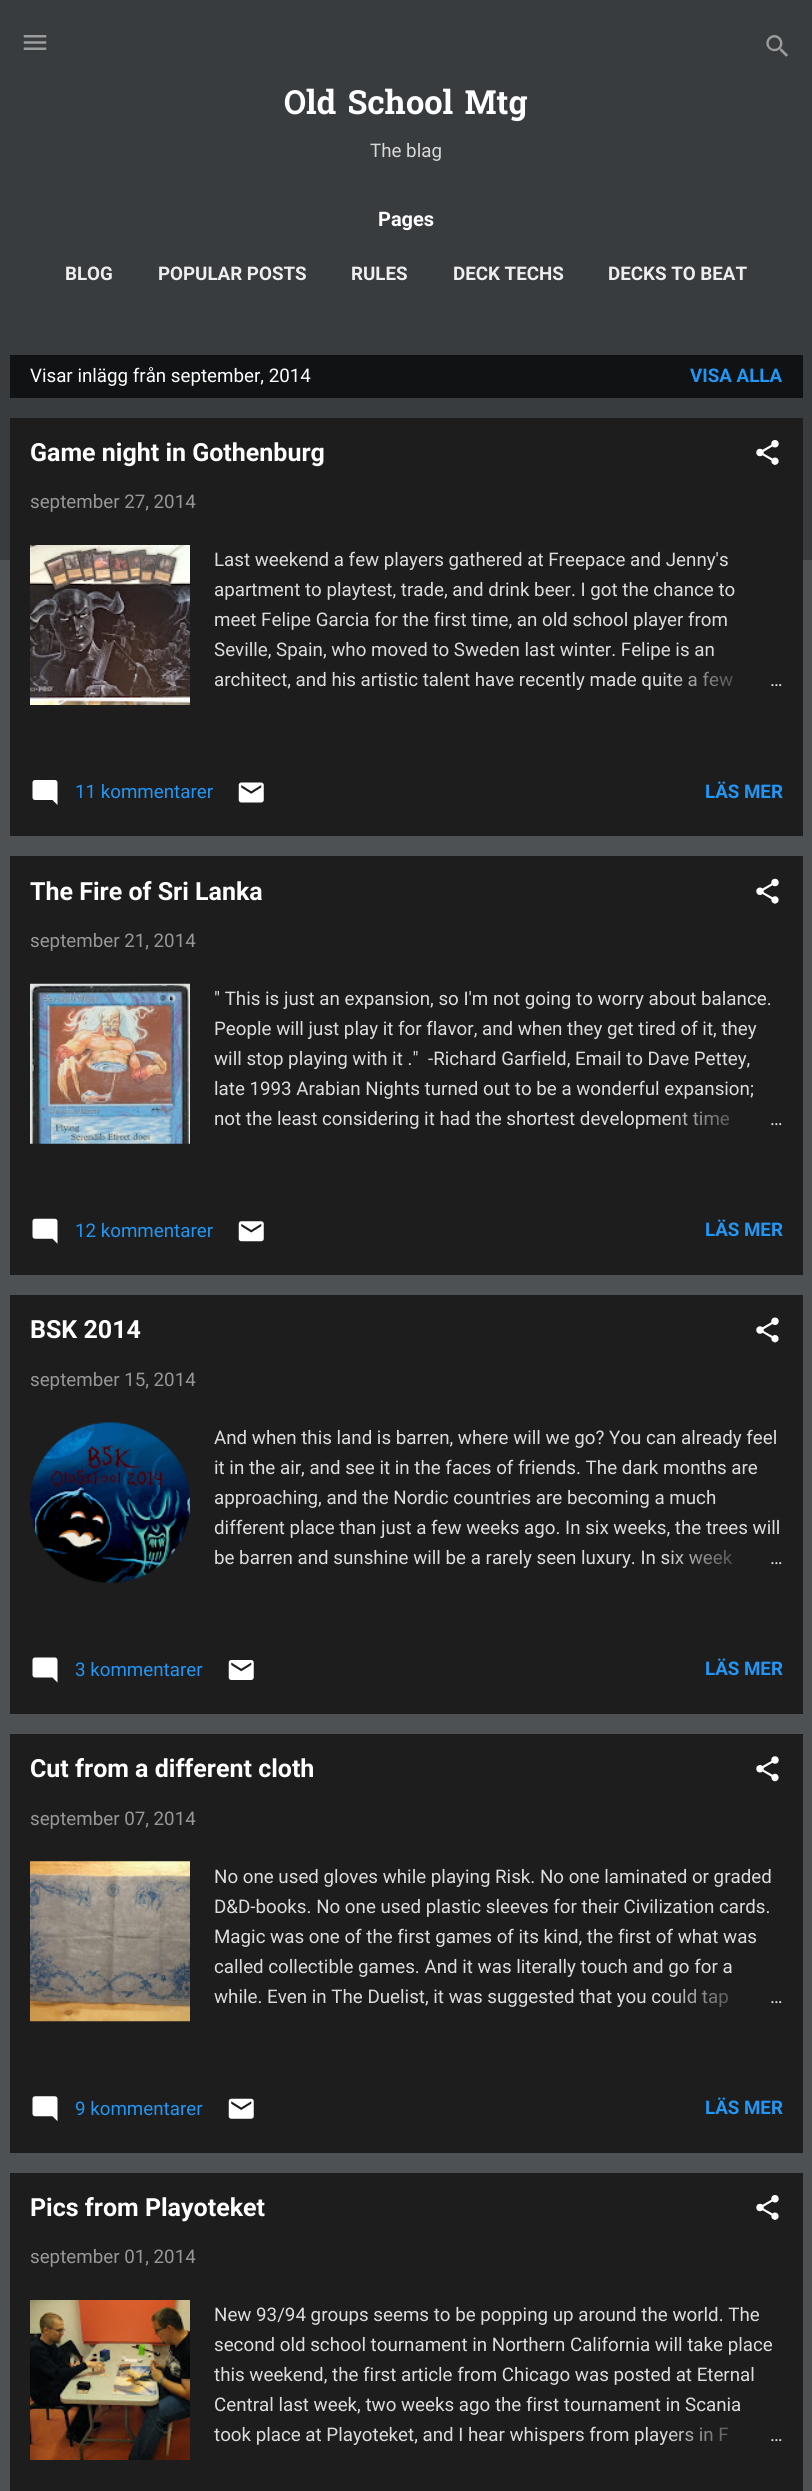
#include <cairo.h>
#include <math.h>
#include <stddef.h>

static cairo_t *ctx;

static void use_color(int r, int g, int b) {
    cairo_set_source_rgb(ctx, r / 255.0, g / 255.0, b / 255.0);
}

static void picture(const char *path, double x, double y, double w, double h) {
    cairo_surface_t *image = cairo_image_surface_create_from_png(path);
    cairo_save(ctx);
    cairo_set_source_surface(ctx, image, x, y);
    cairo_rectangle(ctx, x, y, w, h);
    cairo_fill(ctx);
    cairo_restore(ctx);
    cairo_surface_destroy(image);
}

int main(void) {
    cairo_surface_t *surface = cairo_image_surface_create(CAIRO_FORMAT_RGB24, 812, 2491);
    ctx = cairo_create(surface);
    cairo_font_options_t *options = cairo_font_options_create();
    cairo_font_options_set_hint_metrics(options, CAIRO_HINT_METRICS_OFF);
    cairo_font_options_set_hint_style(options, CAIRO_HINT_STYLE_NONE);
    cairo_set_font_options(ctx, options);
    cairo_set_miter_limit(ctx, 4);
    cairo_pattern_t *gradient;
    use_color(77, 81, 84);
    cairo_paint(ctx);
    use_color(57, 60, 62);
    cairo_rectangle(ctx, 0, 0, 812, 560);
    cairo_fill(ctx);
    picture("img1.png", 23, 35, 24, 15);
    picture("img2.png", 766, 35, 22, 22);
    cairo_select_font_face(ctx, "Hanuman", CAIRO_FONT_SLANT_NORMAL, CAIRO_FONT_WEIGHT_BOLD);
    cairo_set_font_size(ctx, 33.25);
    use_color(255, 255, 255);
    cairo_move_to(ctx, 284, 114);
    cairo_show_text(ctx, "Old School Mtg");
    cairo_select_font_face(ctx, "Roboto", CAIRO_FONT_SLANT_NORMAL, CAIRO_FONT_WEIGHT_NORMAL);
    cairo_set_font_size(ctx, 18.75);
    use_color(215, 216, 216);
    cairo_move_to(ctx, 370, 157);
    cairo_show_text(ctx, "The blag");
    cairo_select_font_face(ctx, "Roboto", CAIRO_FONT_SLANT_NORMAL, CAIRO_FONT_WEIGHT_BOLD);
    cairo_set_font_size(ctx, 20);
    use_color(255, 255, 255);
    cairo_move_to(ctx, 378, 226);
    cairo_show_text(ctx, "Pages");
    cairo_set_font_size(ctx, 18.75);
    use_color(238, 238, 238);
    cairo_move_to(ctx, 65, 280);
    cairo_show_text(ctx, "BLOG");
    cairo_move_to(ctx, 158, 280);
    cairo_show_text(ctx, "POPULAR POSTS");
    cairo_move_to(ctx, 351, 280);
    cairo_show_text(ctx, "RULES");
    cairo_move_to(ctx, 453, 280);
    cairo_show_text(ctx, "DECK TECHS");
    cairo_move_to(ctx, 608, 280);
    cairo_show_text(ctx, "DECKS TO BEAT");
    use_color(17, 18, 19);
    cairo_rectangle(ctx, 10, 355, 793, 43);
    cairo_fill(ctx);
    cairo_select_font_face(ctx, "Roboto", CAIRO_FONT_SLANT_NORMAL, CAIRO_FONT_WEIGHT_NORMAL);
    use_color(255, 255, 255);
    cairo_move_to(ctx, 30, 382);
    cairo_show_text(ctx, "Visar inlägg från september, 2014");
    cairo_select_font_face(ctx, "Roboto", CAIRO_FONT_SLANT_NORMAL, CAIRO_FONT_WEIGHT_BOLD);
    use_color(33, 150, 243);
    cairo_move_to(ctx, 690, 382);
    cairo_show_text(ctx, "VISA ALLA");
    use_color(29, 29, 29);
    cairo_rectangle(ctx, 10, 418, 793, 418);
    cairo_fill(ctx);
    cairo_set_font_size(ctx, 25);
    use_color(255, 255, 255);
    cairo_move_to(ctx, 30, 461);
    cairo_show_text(ctx, "Game night in Gothenburg");
    picture("img3.png", 756, 440, 23, 25);
    cairo_select_font_face(ctx, "Roboto", CAIRO_FONT_SLANT_NORMAL, CAIRO_FONT_WEIGHT_NORMAL);
    cairo_set_font_size(ctx, 18.75);
    use_color(151, 151, 151);
    cairo_move_to(ctx, 30, 508);
    cairo_show_text(ctx, "september 27, 2014");
    picture("img4.png", 30, 545, 160, 160);
    use_color(221, 221, 221);
    cairo_move_to(ctx, 214, 566);
    cairo_show_text(ctx, "Last weekend a few players gathered at Freepace and Jenny's");
    cairo_move_to(ctx, 214, 596);
    cairo_show_text(ctx, "apartment to playtest, trade, and drink beer. I got the chance to");
    cairo_move_to(ctx, 214, 626);
    cairo_show_text(ctx, "meet Felipe Garcia for the first time, an old school player from");
    cairo_move_to(ctx, 214, 656);
    cairo_show_text(ctx, "Seville, Spain, who moved to Sweden last winter. Felipe is an");
    cairo_move_to(ctx, 214, 686);
    cairo_show_text(ctx, "architect, and his artistic talent have recently made quite a few");
    gradient = cairo_pattern_create_linear(783, 680, 663, 680);
    cairo_pattern_add_color_stop_rgba(gradient, 0, 0.114, 0.114, 0.114, 1);
    cairo_pattern_add_color_stop_rgba(gradient, 0.2, 0.114, 0.114, 0.114, 1);
    cairo_pattern_add_color_stop_rgba(gradient, 1, 0.114, 0.114, 0.114, 0);
    cairo_set_source(ctx, gradient);
    cairo_pattern_destroy(gradient);
    cairo_rectangle(ctx, 665, 671, 68, 16);
    cairo_fill(ctx);
    use_color(221, 221, 221);
    cairo_move_to(ctx, 770, 686);
    cairo_show_text(ctx, "…");
    picture("img5.png", 32, 780, 26, 25);
    use_color(33, 150, 243);
    cairo_move_to(ctx, 75, 798);
    cairo_show_text(ctx, "11 kommentarer");
    picture("img6.png", 238, 782, 26, 21);
    cairo_select_font_face(ctx, "Roboto", CAIRO_FONT_SLANT_NORMAL, CAIRO_FONT_WEIGHT_BOLD);
    cairo_move_to(ctx, 705, 798);
    cairo_show_text(ctx, "LÄS MER");
    use_color(29, 29, 29);
    cairo_rectangle(ctx, 10, 856, 793, 419);
    cairo_fill(ctx);
    cairo_set_font_size(ctx, 25);
    use_color(255, 255, 255);
    cairo_move_to(ctx, 30, 900);
    cairo_show_text(ctx, "The Fire of Sri Lanka");
    picture("img7.png", 756, 878, 23, 26);
    cairo_select_font_face(ctx, "Roboto", CAIRO_FONT_SLANT_NORMAL, CAIRO_FONT_WEIGHT_NORMAL);
    cairo_set_font_size(ctx, 18.75);
    use_color(151, 151, 151);
    cairo_move_to(ctx, 30, 947);
    cairo_show_text(ctx, "september 21, 2014");
    picture("img8.png", 30, 983, 160, 161);
    use_color(221, 221, 221);
    cairo_move_to(ctx, 214, 1005);
    cairo_show_text(ctx, "\" This is just an expansion, so I'm not going to worry about balance.");
    cairo_move_to(ctx, 214, 1035);
    cairo_show_text(ctx, "People will just play it for flavor, and when they get tired of it, they");
    cairo_move_to(ctx, 214, 1065);
    cairo_show_text(ctx, "will stop playing with it .\"");
    cairo_move_to(ctx, 428, 1065);
    cairo_show_text(ctx, "-Richard Garfield, Email to Dave Pettey,");
    cairo_move_to(ctx, 214, 1095);
    cairo_show_text(ctx, "late 1993 Arabian Nights turned out to be a wonderful expansion;");
    cairo_move_to(ctx, 214, 1125);
    cairo_show_text(ctx, "not the least considering it had the shortest development time");
    gradient = cairo_pattern_create_linear(783, 1119, 663, 1119);
    cairo_pattern_add_color_stop_rgba(gradient, 0, 0.114, 0.114, 0.114, 1);
    cairo_pattern_add_color_stop_rgba(gradient, 0.2, 0.114, 0.114, 0.114, 1);
    cairo_pattern_add_color_stop_rgba(gradient, 1, 0.114, 0.114, 0.114, 0);
    cairo_set_source(ctx, gradient);
    cairo_pattern_destroy(gradient);
    cairo_rectangle(ctx, 665, 1111, 65, 15);
    cairo_fill(ctx);
    use_color(221, 221, 221);
    cairo_move_to(ctx, 770, 1125);
    cairo_show_text(ctx, "…");
    picture("img9.png", 32, 1218, 26, 26);
    use_color(33, 150, 243);
    cairo_move_to(ctx, 75, 1237);
    cairo_show_text(ctx, "12 kommentarer");
    picture("img10.png", 238, 1221, 26, 21);
    cairo_select_font_face(ctx, "Roboto", CAIRO_FONT_SLANT_NORMAL, CAIRO_FONT_WEIGHT_BOLD);
    cairo_move_to(ctx, 705, 1236);
    cairo_show_text(ctx, "LÄS MER");
    use_color(29, 29, 29);
    cairo_rectangle(ctx, 10, 1295, 793, 419);
    cairo_fill(ctx);
    cairo_set_font_size(ctx, 25);
    use_color(255, 255, 255);
    cairo_move_to(ctx, 30, 1338);
    cairo_show_text(ctx, "BSK 2014");
    picture("img11.png", 756, 1317, 23, 26);
    cairo_select_font_face(ctx, "Roboto", CAIRO_FONT_SLANT_NORMAL, CAIRO_FONT_WEIGHT_NORMAL);
    cairo_set_font_size(ctx, 18.75);
    use_color(151, 151, 151);
    cairo_move_to(ctx, 30, 1386);
    cairo_show_text(ctx, "september 15, 2014");
    picture("img12.png", 30, 1422, 160, 161);
    use_color(221, 221, 221);
    cairo_move_to(ctx, 214, 1444);
    cairo_show_text(ctx, "And when this land is barren, where will we go? You can already feel");
    cairo_move_to(ctx, 214, 1474);
    cairo_show_text(ctx, "it in the air, and see it in the faces of friends. The dark months are");
    cairo_move_to(ctx, 214, 1504);
    cairo_show_text(ctx, "approaching, and the Nordic countries are becoming a much");
    cairo_move_to(ctx, 214, 1534);
    cairo_show_text(ctx, "different place than just a few weeks ago. In six weeks, the trees will");
    cairo_move_to(ctx, 214, 1564);
    cairo_show_text(ctx, "be barren and sunshine will be a rarely seen luxury. In six week");
    gradient = cairo_pattern_create_linear(783, 1558, 663, 1558);
    cairo_pattern_add_color_stop_rgba(gradient, 0, 0.114, 0.114, 0.114, 1);
    cairo_pattern_add_color_stop_rgba(gradient, 0.2, 0.114, 0.114, 0.114, 1);
    cairo_pattern_add_color_stop_rgba(gradient, 1, 0.114, 0.114, 0.114, 0);
    cairo_set_source(ctx, gradient);
    cairo_pattern_destroy(gradient);
    cairo_rectangle(ctx, 665, 1549, 68, 16);
    cairo_fill(ctx);
    use_color(221, 221, 221);
    cairo_move_to(ctx, 770, 1564);
    cairo_show_text(ctx, "…");
    picture("img13.png", 32, 1657, 26, 26);
    use_color(33, 150, 243);
    cairo_move_to(ctx, 75, 1676);
    cairo_show_text(ctx, "3 kommentarer");
    picture("img14.png", 228, 1660, 26, 20);
    cairo_select_font_face(ctx, "Roboto", CAIRO_FONT_SLANT_NORMAL, CAIRO_FONT_WEIGHT_BOLD);
    cairo_move_to(ctx, 705, 1675);
    cairo_show_text(ctx, "LÄS MER");
    use_color(29, 29, 29);
    cairo_rectangle(ctx, 10, 1734, 793, 419);
    cairo_fill(ctx);
    cairo_set_font_size(ctx, 25);
    use_color(255, 255, 255);
    cairo_move_to(ctx, 30, 1777);
    cairo_show_text(ctx, "Cut from a different cloth");
    picture("img15.png", 756, 1756, 23, 26);
    cairo_select_font_face(ctx, "Roboto", CAIRO_FONT_SLANT_NORMAL, CAIRO_FONT_WEIGHT_NORMAL);
    cairo_set_font_size(ctx, 18.75);
    use_color(151, 151, 151);
    cairo_move_to(ctx, 30, 1825);
    cairo_show_text(ctx, "september 07, 2014");
    picture("img16.png", 30, 1861, 160, 161);
    use_color(221, 221, 221);
    cairo_move_to(ctx, 214, 1883);
    cairo_show_text(ctx, "No one used gloves while playing Risk. No one laminated or graded");
    cairo_move_to(ctx, 214, 1913);
    cairo_show_text(ctx, "D&D-books. No one used plastic sleeves for their Civilization cards.");
    cairo_move_to(ctx, 214, 1943);
    cairo_show_text(ctx, "Magic was one of the first games of its kind, the first of what was");
    cairo_move_to(ctx, 214, 1973);
    cairo_show_text(ctx, "called collectible games. And it was literally touch and go for a");
    cairo_move_to(ctx, 214, 2003);
    cairo_show_text(ctx, "while. Even in The Duelist, it was suggested that you could tap");
    gradient = cairo_pattern_create_linear(783, 1996, 663, 1996);
    cairo_pattern_add_color_stop_rgba(gradient, 0, 0.114, 0.114, 0.114, 1);
    cairo_pattern_add_color_stop_rgba(gradient, 0.2, 0.114, 0.114, 0.114, 1);
    cairo_pattern_add_color_stop_rgba(gradient, 1, 0.114, 0.114, 0.114, 0);
    cairo_set_source(ctx, gradient);
    cairo_pattern_destroy(gradient);
    cairo_rectangle(ctx, 665, 1988, 64, 19);
    cairo_fill(ctx);
    use_color(221, 221, 221);
    cairo_move_to(ctx, 770, 2003);
    cairo_show_text(ctx, "…");
    picture("img17.png", 32, 2096, 26, 25);
    use_color(33, 150, 243);
    cairo_move_to(ctx, 75, 2115);
    cairo_show_text(ctx, "9 kommentarer");
    picture("img18.png", 228, 2098, 26, 21);
    cairo_select_font_face(ctx, "Roboto", CAIRO_FONT_SLANT_NORMAL, CAIRO_FONT_WEIGHT_BOLD);
    cairo_move_to(ctx, 705, 2114);
    cairo_show_text(ctx, "LÄS MER");
    use_color(29, 29, 29);
    cairo_rectangle(ctx, 10, 2173, 793, 318);
    cairo_fill(ctx);
    cairo_set_font_size(ctx, 25);
    use_color(255, 255, 255);
    cairo_move_to(ctx, 30, 2216);
    cairo_show_text(ctx, "Pics from Playoteket");
    picture("img3.png", 756, 2195, 23, 25);
    cairo_select_font_face(ctx, "Roboto", CAIRO_FONT_SLANT_NORMAL, CAIRO_FONT_WEIGHT_NORMAL);
    cairo_set_font_size(ctx, 18.75);
    use_color(151, 151, 151);
    cairo_move_to(ctx, 30, 2263);
    cairo_show_text(ctx, "september 01, 2014");
    picture("img19.png", 30, 2300, 160, 160);
    use_color(221, 221, 221);
    cairo_move_to(ctx, 214, 2321);
    cairo_show_text(ctx, "New 93/94 groups seems to be popping up around the world. The");
    cairo_move_to(ctx, 214, 2351);
    cairo_show_text(ctx, "second old school tournament in Northern California will take place");
    cairo_move_to(ctx, 214, 2381);
    cairo_show_text(ctx, "this weekend, the first article from Chicago was posted at Eternal");
    cairo_move_to(ctx, 214, 2411);
    cairo_show_text(ctx, "Central last week, two weeks ago the first tournament in Scania");
    cairo_move_to(ctx, 214, 2441);
    cairo_show_text(ctx, "took place at Playoteket, and I hear whispers from players in F");
    gradient = cairo_pattern_create_linear(783, 2435, 663, 2435);
    cairo_pattern_add_color_stop_rgba(gradient, 0, 0.114, 0.114, 0.114, 1);
    cairo_pattern_add_color_stop_rgba(gradient, 0.2, 0.114, 0.114, 0.114, 1);
    cairo_pattern_add_color_stop_rgba(gradient, 1, 0.114, 0.114, 0.114, 0);
    cairo_set_source(ctx, gradient);
    cairo_pattern_destroy(gradient);
    cairo_rectangle(ctx, 665, 2427, 64, 15);
    cairo_fill(ctx);
    use_color(221, 221, 221);
    cairo_move_to(ctx, 770, 2441);
    cairo_show_text(ctx, "…");
    cairo_surface_write_to_png(surface, "result.png");
    cairo_font_options_destroy(options);
    cairo_destroy(ctx);
    cairo_surface_destroy(surface);
    return 0;
}
